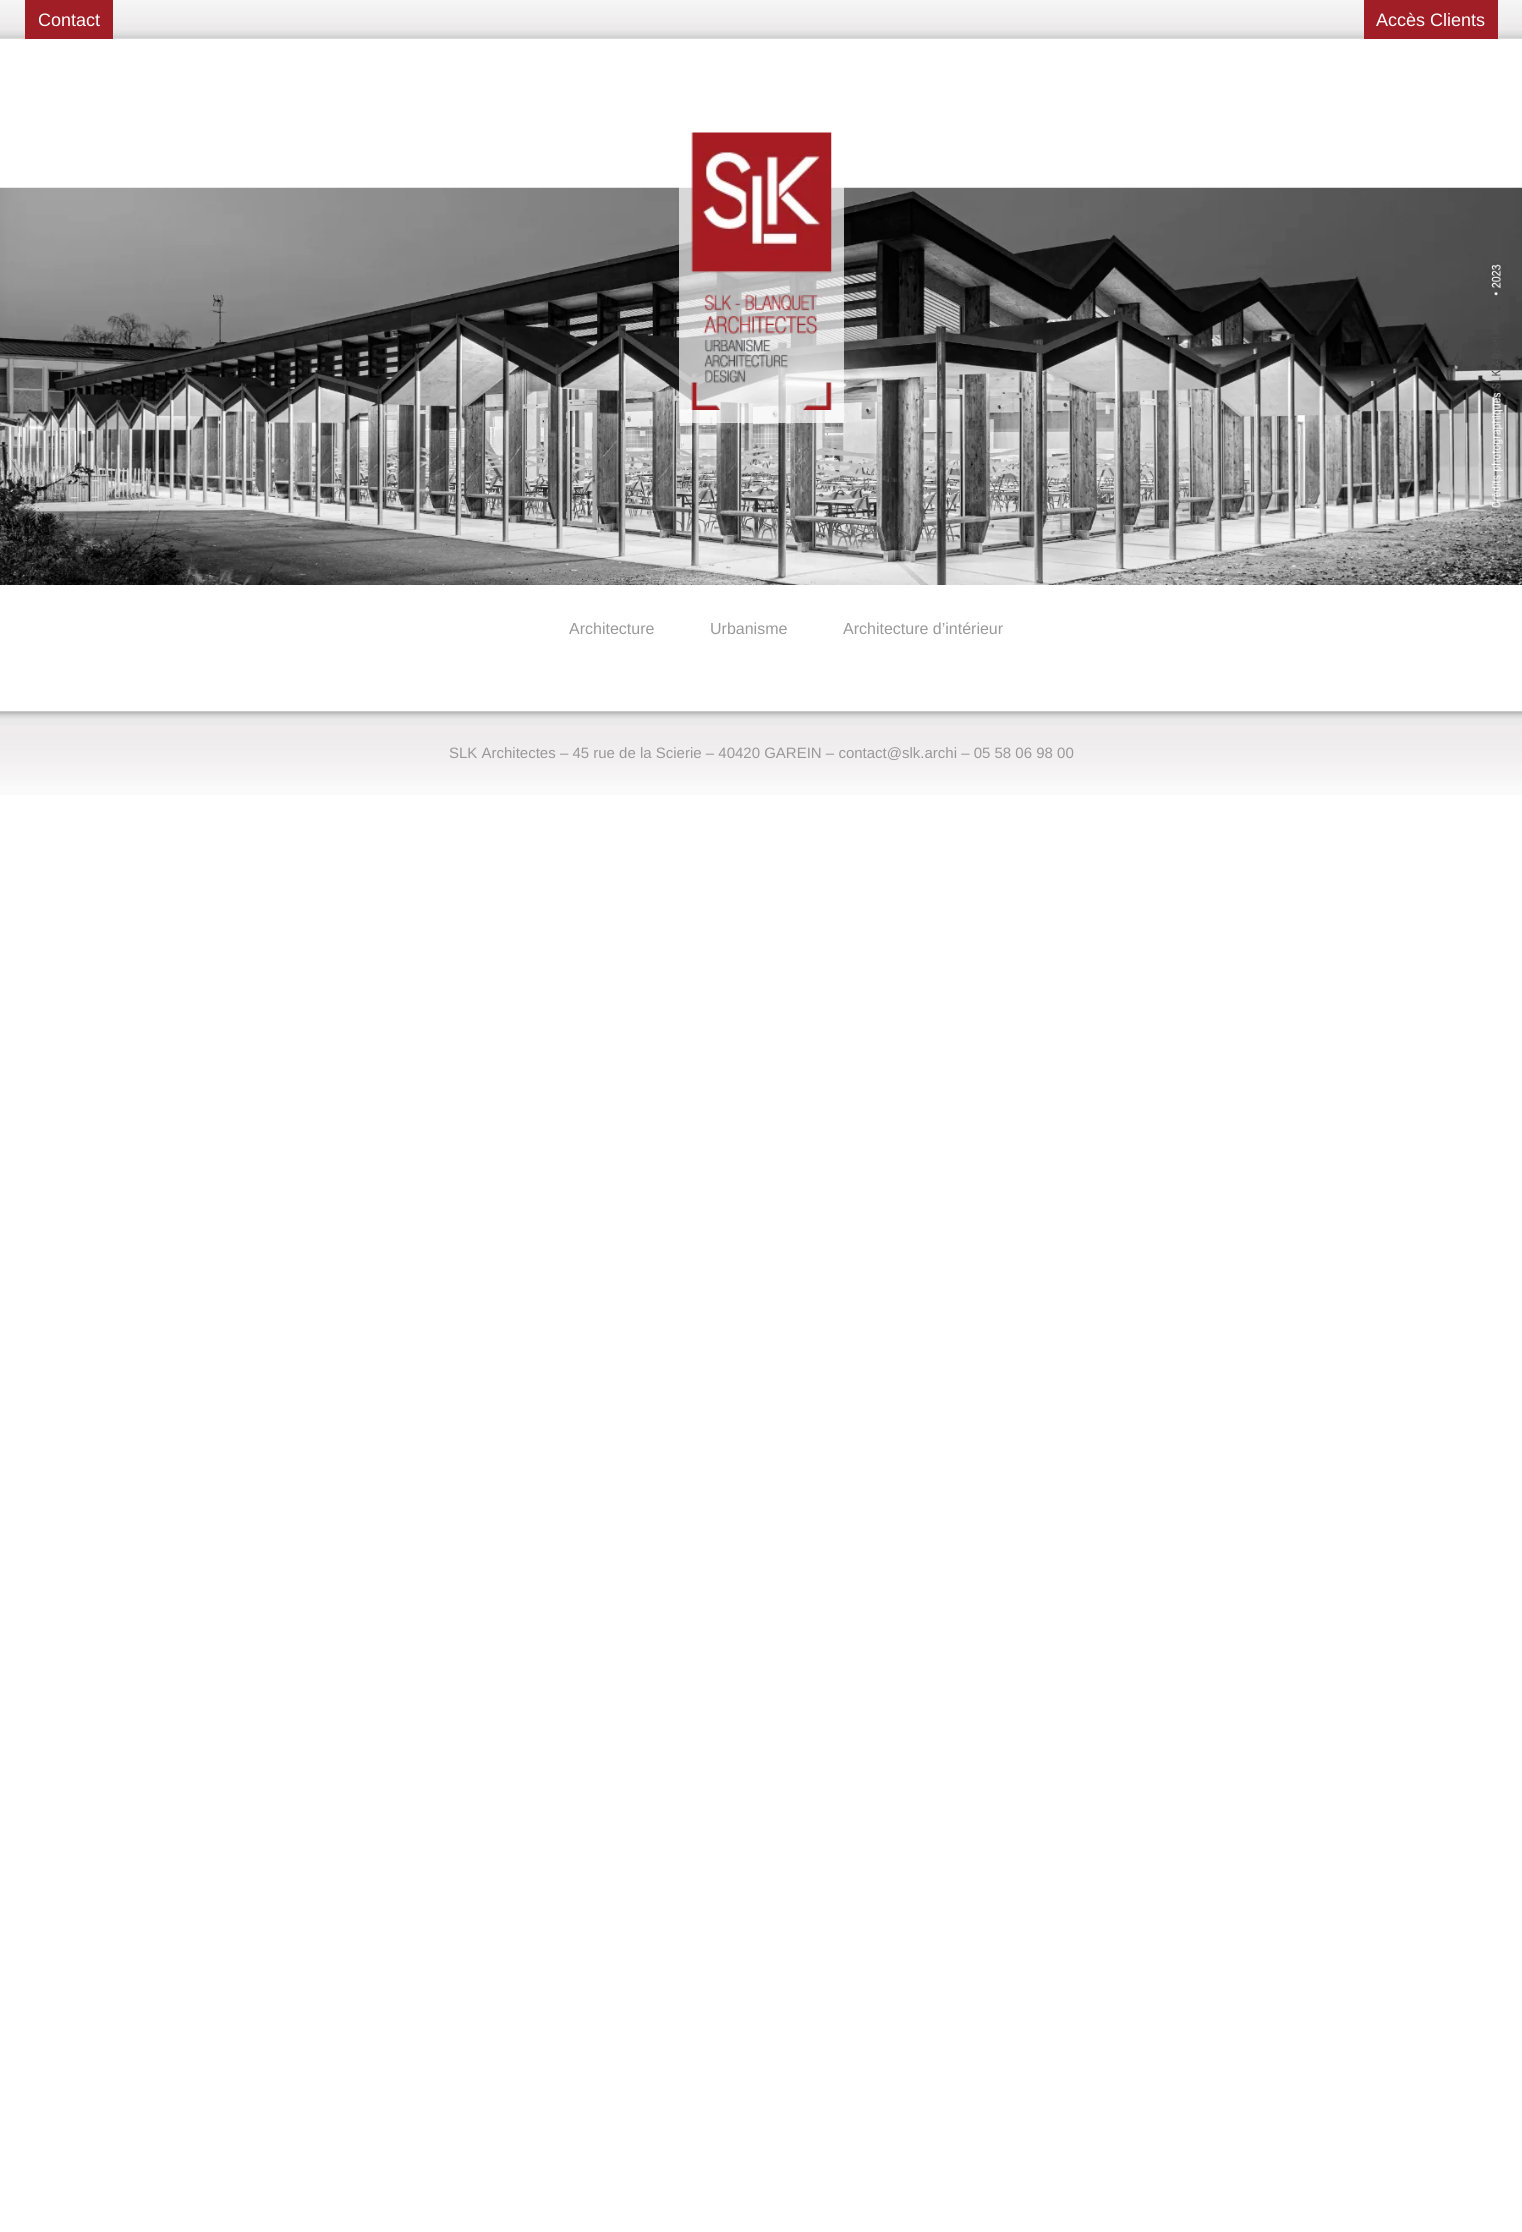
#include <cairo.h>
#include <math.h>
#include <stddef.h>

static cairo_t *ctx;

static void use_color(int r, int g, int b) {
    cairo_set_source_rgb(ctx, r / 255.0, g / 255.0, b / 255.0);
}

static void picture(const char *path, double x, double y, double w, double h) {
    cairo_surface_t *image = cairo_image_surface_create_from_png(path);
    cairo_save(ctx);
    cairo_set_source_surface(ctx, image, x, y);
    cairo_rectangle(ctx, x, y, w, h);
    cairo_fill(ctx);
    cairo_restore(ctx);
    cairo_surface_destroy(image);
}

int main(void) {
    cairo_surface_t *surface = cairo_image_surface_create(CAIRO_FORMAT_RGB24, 1522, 2232);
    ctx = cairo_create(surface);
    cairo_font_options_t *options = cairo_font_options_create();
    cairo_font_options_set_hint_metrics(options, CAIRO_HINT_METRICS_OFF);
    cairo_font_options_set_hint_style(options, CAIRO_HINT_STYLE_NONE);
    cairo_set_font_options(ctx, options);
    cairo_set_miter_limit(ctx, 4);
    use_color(255, 255, 255);
    cairo_paint(ctx);
    picture("img3.png", 0, 187, 1522, 398);
    picture("img1.png", 0, 0, 1522, 188);
    use_color(162, 30, 39);
    cairo_rectangle(ctx, 25, 0, 88, 39);
    cairo_fill(ctx);
    cairo_select_font_face(ctx, "Liberation Sans", CAIRO_FONT_SLANT_NORMAL, CAIRO_FONT_WEIGHT_NORMAL);
    cairo_set_font_size(ctx, 18);
    use_color(255, 255, 255);
    cairo_move_to(ctx, 38, 26);
    cairo_show_text(ctx, "Contact");
    use_color(162, 30, 39);
    cairo_rectangle(ctx, 1364, 0, 134, 39);
    cairo_fill(ctx);
    use_color(255, 255, 255);
    cairo_move_to(ctx, 1376, 26);
    cairo_show_text(ctx, "Accès Clients");
    cairo_set_source_rgba(ctx, 1, 1, 1, 0.7);
    cairo_rectangle(ctx, 679, 187, 165, 236);
    cairo_fill(ctx);
    picture("img2.png", 691, 132, 141, 278);
    cairo_set_font_size(ctx, 16);
    use_color(153, 153, 153);
    cairo_move_to(ctx, 569, 634);
    cairo_show_text(ctx, "Architecture");
    cairo_move_to(ctx, 710, 634);
    cairo_show_text(ctx, "Urbanisme");
    cairo_move_to(ctx, 843, 634);
    cairo_show_text(ctx, "Architecture d’intérieur");
    picture("img4.png", 0, 711, 1522, 84);
    cairo_set_font_size(ctx, 15);
    cairo_move_to(ctx, 449, 758);
    cairo_show_text(ctx, "SLK Architectes – 45 rue de la Scierie – 40420 GAREIN – contact@slk.archi – 05 58 06 98 00");
    cairo_surface_write_to_png(surface, "result.png");
    cairo_font_options_destroy(options);
    cairo_destroy(ctx);
    cairo_surface_destroy(surface);
    return 0;
}
